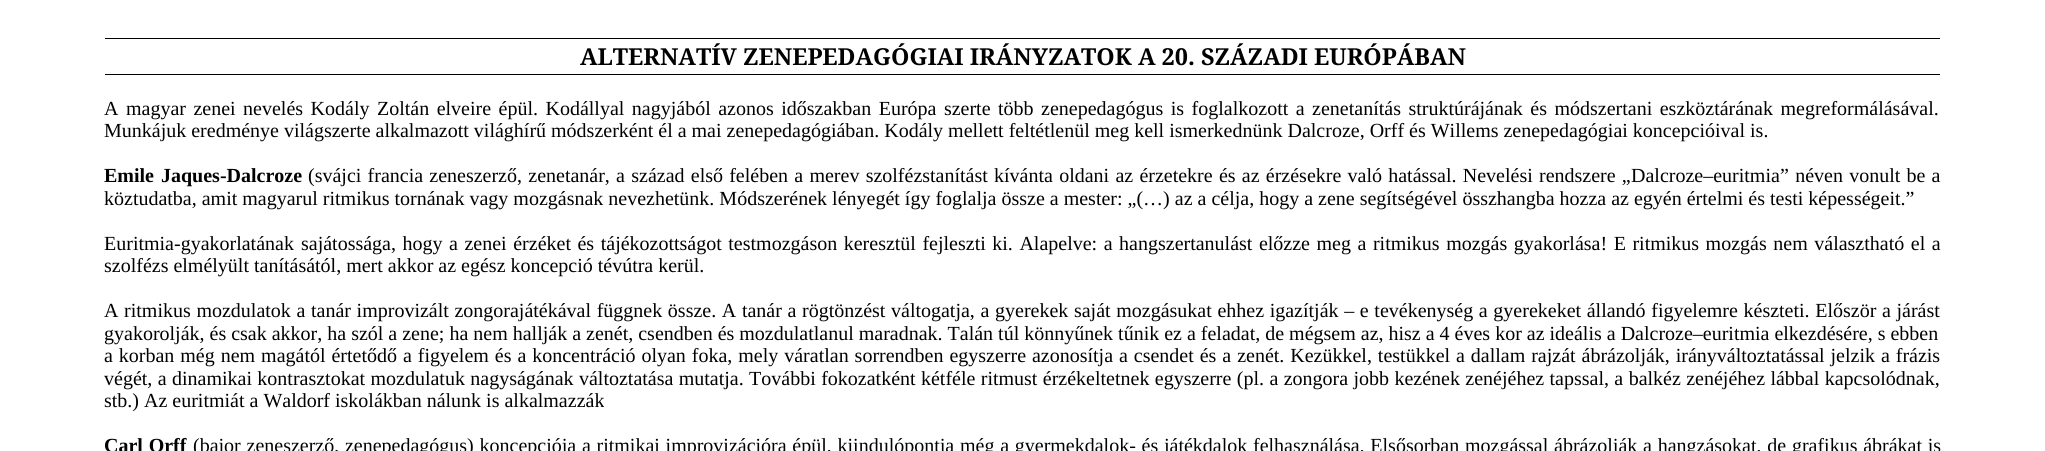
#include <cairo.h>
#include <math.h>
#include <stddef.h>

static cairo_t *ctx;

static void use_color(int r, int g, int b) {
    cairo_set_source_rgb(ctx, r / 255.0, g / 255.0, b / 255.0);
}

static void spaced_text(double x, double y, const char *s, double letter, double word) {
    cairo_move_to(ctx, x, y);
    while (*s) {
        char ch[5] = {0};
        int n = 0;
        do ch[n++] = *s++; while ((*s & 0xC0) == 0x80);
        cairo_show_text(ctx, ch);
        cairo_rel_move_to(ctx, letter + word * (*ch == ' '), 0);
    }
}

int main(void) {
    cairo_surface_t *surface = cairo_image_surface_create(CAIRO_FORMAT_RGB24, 2045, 451);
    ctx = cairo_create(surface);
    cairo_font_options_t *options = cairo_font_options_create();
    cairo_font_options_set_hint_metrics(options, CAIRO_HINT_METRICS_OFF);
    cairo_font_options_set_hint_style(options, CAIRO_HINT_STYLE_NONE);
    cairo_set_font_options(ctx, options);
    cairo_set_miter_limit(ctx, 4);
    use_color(255, 255, 255);
    cairo_paint(ctx);
    use_color(0, 0, 0);
    cairo_rectangle(ctx, 105, 38, 1835, 1);
    cairo_fill(ctx);
    cairo_rectangle(ctx, 105, 74, 1835, 1);
    cairo_fill(ctx);
    cairo_select_font_face(ctx, "Noto Serif", CAIRO_FONT_SLANT_NORMAL, CAIRO_FONT_WEIGHT_BOLD);
    cairo_set_font_size(ctx, 23.35);
    cairo_move_to(ctx, 580, 65);
    cairo_show_text(ctx, "ALTERNATÍV ZENEPEDAGÓGIAI IRÁNYZATOK A 20. SZÁZADI EURÓPÁBAN");
    cairo_select_font_face(ctx, "Liberation Serif", CAIRO_FONT_SLANT_NORMAL, CAIRO_FONT_WEIGHT_NORMAL);
    cairo_set_font_size(ctx, 20);
    spaced_text(104, 115, "A magyar zenei nevelés Kodály Zoltán elveire épül. Kodállyal nagyjából azonos időszakban Európa szerte több zenepedagógus is foglalkozott a zenetanítás struktúrájának és módszertani eszköztárának megreformálásával.", 0, 2.5);
    cairo_move_to(ctx, 104, 137);
    cairo_show_text(ctx, "Munkájuk eredménye világszerte alkalmazott világhírű módszerként él a mai zenepedagógiában. Kodály mellett feltétlenül meg kell ismerkednünk Dalcroze, Orff és Willems zenepedagógiai koncepcióival is.");
    cairo_select_font_face(ctx, "Liberation Serif", CAIRO_FONT_SLANT_NORMAL, CAIRO_FONT_WEIGHT_BOLD);
    cairo_move_to(ctx, 104, 182);
    cairo_show_text(ctx, "Emile");
    cairo_move_to(ctx, 161, 182);
    cairo_show_text(ctx, "Jaques-Dalcroze");
    cairo_select_font_face(ctx, "Liberation Serif", CAIRO_FONT_SLANT_NORMAL, CAIRO_FONT_WEIGHT_NORMAL);
    spaced_text(308, 182, "(svájci francia zeneszerző, zenetanár, a század első felében a merev szolfézstanítást kívánta oldani az érzetekre és az érzésekre való hatással. Nevelési rendszere „", 0, 1.25);
    cairo_move_to(ctx, 1631, 182);
    cairo_show_text(ctx, "Dalcroze–euritmia");
    spaced_text(1780, 182, "” néven vonult be a", 0, 1.25);
    cairo_move_to(ctx, 104, 205);
    cairo_show_text(ctx, "köztudatba, amit magyarul ritmikus tornának vagy mozgásnak nevezhetünk. Módszerének lényegét így foglalja össze a mester: „(…) az a célja, hogy a zene segítségével összhangba hozza az egyén értelmi és testi képességeit.”");
    cairo_move_to(ctx, 104, 250);
    cairo_show_text(ctx, "Euritmia-gyakorlatának");
    spaced_text(301, 250, "sajátossága, hogy a zenei érzéket és tájékozottságot testmozgáson keresztül fejleszti ki. Alapelve: a hangszertanulást előzze meg a ritmikus mozgás gyakorlása! E ritmikus mozgás nem választható el a", 0, 1.55);
    cairo_move_to(ctx, 104, 272);
    cairo_show_text(ctx, "szolfézs elmélyült tanításától, mert akkor az egész koncepció tévútra kerül.");
    spaced_text(104, 317, "A ritmikus mozdulatok a tanár improvizált zongorajátékával függnek össze. A tanár a rögtönzést váltogatja, a gyerekek saját mozgásukat ehhez igazítják – e tevékenység a gyerekeket állandó figyelemre készteti. Először a járást", 0, 0.65);
    cairo_move_to(ctx, 104, 340);
    cairo_show_text(ctx, "gyakorolják, és csak akkor, ha szól a zene; ha nem hallják a zenét, csendben és mozdulatlanul maradnak. Talán túl könnyűnek tűnik ez a feladat, de mégsem az, hisz a 4 éves kor az ideális a Dalcroze–euritmia elkezdésére, s ebben");
    spaced_text(104, 362, "a korban még nem magától értetődő a figyelem és a koncentráció olyan foka, mely váratlan sorrendben egyszerre azonosítja a csendet és a zenét. Kezükkel, testükkel a dallam rajzát ábrázolják, irányváltoztatással jelzik a frázis", 0, 0.95);
    spaced_text(104, 385, "végét, a dinamikai kontrasztokat mozdulatuk nagyságának változtatása mutatja. További fokozatként kétféle ritmust érzékeltetnek egyszerre (pl. a zongora jobb kezének zenéjéhez tapssal, a balkéz zenéjéhez lábbal kapcsolódnak,", 0, 0.4);
    cairo_move_to(ctx, 104, 407);
    cairo_show_text(ctx, "stb.) Az euritmiát a Waldorf iskolákban nálunk is alkalmazzák");
    cairo_select_font_face(ctx, "Liberation Serif", CAIRO_FONT_SLANT_NORMAL, CAIRO_FONT_WEIGHT_BOLD);
    spaced_text(104, 452, "Carl Orff", 0, 0.75);
    cairo_select_font_face(ctx, "Liberation Serif", CAIRO_FONT_SLANT_NORMAL, CAIRO_FONT_WEIGHT_NORMAL);
    spaced_text(193, 452, "(bajor zeneszerző, zenepedagógus) koncepciója a ritmikai improvizációra épül, kiindulópontja még a gyermekdalok- és játékdalok felhasználása. Elsősorban mozgással ábrázolják a hangzásokat, de grafikus ábrákat is", 0, 0.75);
    cairo_surface_write_to_png(surface, "result.png");
    cairo_font_options_destroy(options);
    cairo_destroy(ctx);
    cairo_surface_destroy(surface);
    return 0;
}
